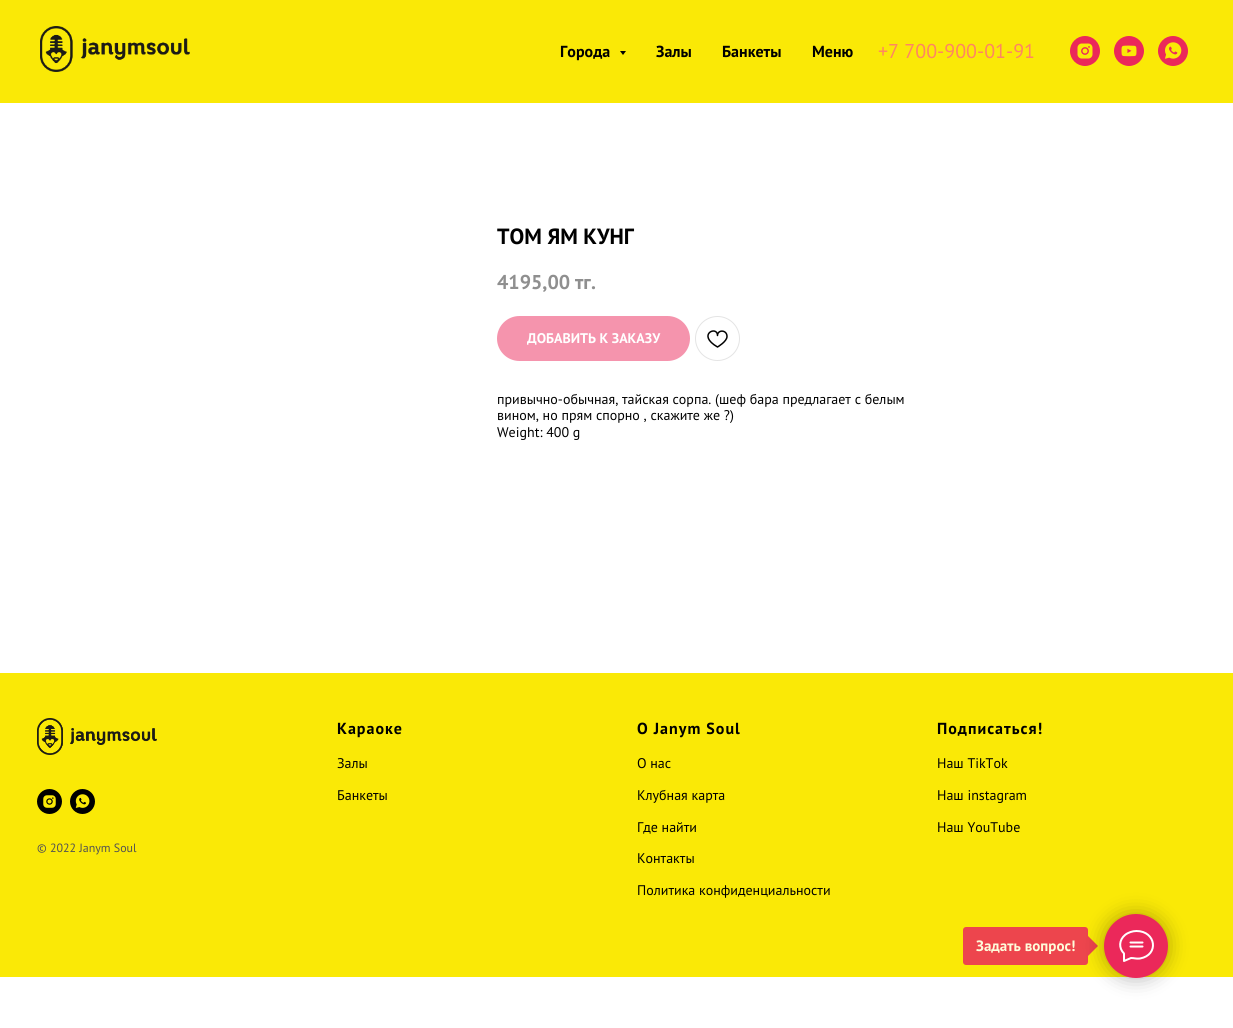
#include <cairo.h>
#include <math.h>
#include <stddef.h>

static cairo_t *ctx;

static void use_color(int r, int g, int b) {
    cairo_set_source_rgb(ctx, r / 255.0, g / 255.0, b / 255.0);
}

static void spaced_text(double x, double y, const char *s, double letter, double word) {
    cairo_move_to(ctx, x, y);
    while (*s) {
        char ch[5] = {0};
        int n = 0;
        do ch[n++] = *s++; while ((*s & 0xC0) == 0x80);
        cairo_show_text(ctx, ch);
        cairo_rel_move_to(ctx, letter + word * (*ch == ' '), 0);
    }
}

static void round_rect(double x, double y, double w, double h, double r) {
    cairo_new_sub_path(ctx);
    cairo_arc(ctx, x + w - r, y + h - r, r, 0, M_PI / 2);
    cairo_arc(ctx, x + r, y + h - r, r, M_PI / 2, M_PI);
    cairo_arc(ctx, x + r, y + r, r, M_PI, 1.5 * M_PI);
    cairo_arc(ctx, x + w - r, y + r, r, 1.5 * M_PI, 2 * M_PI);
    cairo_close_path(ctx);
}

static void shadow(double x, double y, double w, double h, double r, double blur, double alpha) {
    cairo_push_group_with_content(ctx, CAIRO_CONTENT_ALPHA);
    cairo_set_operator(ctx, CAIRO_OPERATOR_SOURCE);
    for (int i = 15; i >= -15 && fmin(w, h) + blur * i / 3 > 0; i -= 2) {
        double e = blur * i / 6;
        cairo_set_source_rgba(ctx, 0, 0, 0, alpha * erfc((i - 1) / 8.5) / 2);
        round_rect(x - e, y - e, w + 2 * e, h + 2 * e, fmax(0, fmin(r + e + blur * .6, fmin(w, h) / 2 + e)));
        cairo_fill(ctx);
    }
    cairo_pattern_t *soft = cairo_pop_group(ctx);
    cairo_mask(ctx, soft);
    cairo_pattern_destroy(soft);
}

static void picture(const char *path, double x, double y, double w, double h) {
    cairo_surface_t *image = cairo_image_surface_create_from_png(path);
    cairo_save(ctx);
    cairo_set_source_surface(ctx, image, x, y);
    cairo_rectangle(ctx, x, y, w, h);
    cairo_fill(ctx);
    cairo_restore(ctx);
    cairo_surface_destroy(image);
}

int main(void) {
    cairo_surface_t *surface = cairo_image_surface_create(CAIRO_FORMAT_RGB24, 1233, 1028);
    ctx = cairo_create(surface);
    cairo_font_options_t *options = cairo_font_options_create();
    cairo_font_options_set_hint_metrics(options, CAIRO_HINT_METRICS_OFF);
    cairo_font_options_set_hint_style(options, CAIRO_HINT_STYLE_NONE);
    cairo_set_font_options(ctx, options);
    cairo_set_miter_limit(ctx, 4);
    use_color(255, 255, 255);
    cairo_paint(ctx);
    use_color(250, 233, 6);
    cairo_rectangle(ctx, 0, 0, 1233, 103);
    cairo_fill(ctx);
    picture("img1.png", 40, 26, 150, 46);
    cairo_select_font_face(ctx, "PT Sans", CAIRO_FONT_SLANT_NORMAL, CAIRO_FONT_WEIGHT_BOLD);
    cairo_set_font_size(ctx, 16);
    use_color(0, 0, 0);
    cairo_move_to(ctx, 560, 57);
    cairo_show_text(ctx, "Города");
    cairo_new_path(ctx);
    cairo_move_to(ctx, 620, 51);
    cairo_line_to(ctx, 626, 51);
    cairo_line_to(ctx, 623, 55);
    cairo_close_path(ctx);
    cairo_fill(ctx);
    cairo_move_to(ctx, 656, 57);
    cairo_show_text(ctx, "Залы");
    cairo_move_to(ctx, 722, 57);
    cairo_show_text(ctx, "Банкеты");
    cairo_move_to(ctx, 812, 57);
    cairo_show_text(ctx, "Меню");
    cairo_select_font_face(ctx, "PT Sans", CAIRO_FONT_SLANT_NORMAL, CAIRO_FONT_WEIGHT_NORMAL);
    cairo_set_font_size(ctx, 20);
    use_color(255, 133, 98);
    cairo_move_to(ctx, 878, 58);
    cairo_show_text(ctx, "+7 700-900-01-91");
    picture("img2.png", 1070, 36, 30, 30);
    picture("img3.png", 1114, 36, 30, 30);
    picture("img4.png", 1158, 36, 30, 30);
    use_color(250, 233, 6);
    cairo_rectangle(ctx, 0, 673, 1233, 304);
    cairo_fill(ctx);
    use_color(237, 69, 77);
    round_rect(963, 927, 125, 38, 3);
    cairo_fill(ctx);
    cairo_select_font_face(ctx, "PT Sans", CAIRO_FONT_SLANT_NORMAL, CAIRO_FONT_WEIGHT_BOLD);
    cairo_set_font_size(ctx, 15);
    use_color(254, 252, 218);
    cairo_move_to(ctx, 976, 951);
    cairo_show_text(ctx, "Задать вопрос!");
    use_color(237, 69, 77);
    cairo_new_path(ctx);
    cairo_move_to(ctx, 1088, 956);
    cairo_line_to(ctx, 1088, 936);
    cairo_line_to(ctx, 1098, 946);
    cairo_close_path(ctx);
    cairo_fill(ctx);
    use_color(0, 0, 0);
    shadow(1104, 914, 64, 64, 32, 10, 0.3);
    use_color(235, 40, 90);
    cairo_arc(ctx, 1136, 946, 31, 0, 2 * M_PI);
    cairo_fill_preserve(ctx);
    cairo_stroke(ctx);
    cairo_new_path(ctx);
    cairo_move_to(ctx, 1130.5, 942.5);
    cairo_line_to(ctx, 1142.5, 942.5);
    cairo_move_to(ctx, 1130.5, 946.5);
    cairo_line_to(ctx, 1142.5, 946.5);
    cairo_move_to(ctx, 1124, 953.5);
    cairo_curve_to(ctx, 1118.5, 948, 1119, 940, 1125, 935);
    cairo_curve_to(ctx, 1128, 932.5, 1132.5, 931, 1136.5, 931);
    cairo_curve_to(ctx, 1156, 931, 1159.5, 955, 1140, 958.5);
    cairo_curve_to(ctx, 1136, 959, 1134.5, 958, 1131, 958);
    cairo_line_to(ctx, 1124, 961);
    cairo_line_to(ctx, 1124, 954);
    cairo_close_path(ctx);
    use_color(255, 255, 255);
    cairo_set_line_cap(ctx, CAIRO_LINE_CAP_ROUND);
    cairo_set_line_join(ctx, CAIRO_LINE_JOIN_ROUND);
    cairo_stroke(ctx);
    cairo_set_font_size(ctx, 22);
    use_color(0, 0, 0);
    cairo_move_to(ctx, 497, 244);
    cairo_show_text(ctx, "ТОМ ЯМ КУНГ");
    cairo_set_font_size(ctx, 20);
    use_color(143, 143, 143);
    cairo_move_to(ctx, 497, 289);
    cairo_show_text(ctx, "4195,00");
    cairo_move_to(ctx, 575, 289);
    cairo_show_text(ctx, "тг.");
    use_color(245, 148, 173);
    round_rect(497, 316, 193, 45, 22.5);
    cairo_fill(ctx);
    cairo_set_font_size(ctx, 14);
    use_color(255, 255, 255);
    cairo_move_to(ctx, 527, 343);
    cairo_show_text(ctx, "ДОБАВИТЬ К ЗАКАЗУ");
    cairo_new_path(ctx);
    cairo_arc(ctx, 717.5, 338.5, 22, 0, 2 * M_PI);
    use_color(228, 228, 228);
    cairo_set_line_width(ctx, 1);
    cairo_set_line_cap(ctx, CAIRO_LINE_CAP_BUTT);
    cairo_set_line_join(ctx, CAIRO_LINE_JOIN_MITER);
    cairo_stroke(ctx);
    cairo_new_path(ctx);
    cairo_move_to(ctx, 727, 336.5);
    cairo_curve_to(ctx, 727, 341.5, 717.5, 347, 717.5, 347);
    cairo_curve_to(ctx, 696, 334.5, 717.5, 325, 717.5, 335.5);
    cairo_curve_to(ctx, 717.5, 329.5, 727, 329.5, 727, 336.5);
    cairo_close_path(ctx);
    use_color(0, 0, 0);
    cairo_set_line_width(ctx, 1.5);
    cairo_set_line_join(ctx, CAIRO_LINE_JOIN_ROUND);
    cairo_stroke(ctx);
    cairo_select_font_face(ctx, "PT Sans", CAIRO_FONT_SLANT_NORMAL, CAIRO_FONT_WEIGHT_NORMAL);
    cairo_move_to(ctx, 497, 404);
    cairo_show_text(ctx, "привычно-обычная, тайская сорпа. (шеф бара предлагает с белым");
    cairo_move_to(ctx, 497, 420);
    cairo_show_text(ctx, "вином, но прям спорно , скажите же ?)");
    cairo_move_to(ctx, 497, 437);
    cairo_show_text(ctx, "Weight: 400 g");
    picture("img5.png", 37, 718, 120, 37);
    picture("img6.png", 37, 789, 25, 25);
    picture("img7.png", 70, 789, 25, 25);
    cairo_set_font_size(ctx, 12);
    use_color(82, 82, 82);
    cairo_move_to(ctx, 37, 852);
    cairo_show_text(ctx, "© 2022 Janym Soul");
    cairo_select_font_face(ctx, "PT Sans", CAIRO_FONT_SLANT_NORMAL, CAIRO_FONT_WEIGHT_BOLD);
    cairo_set_font_size(ctx, 16);
    use_color(0, 0, 0);
    spaced_text(337, 734, "Караоке", 1, 0);
    cairo_select_font_face(ctx, "PT Sans", CAIRO_FONT_SLANT_NORMAL, CAIRO_FONT_WEIGHT_NORMAL);
    cairo_set_font_size(ctx, 14);
    cairo_move_to(ctx, 337, 768);
    cairo_show_text(ctx, "Залы");
    cairo_move_to(ctx, 337, 800);
    cairo_show_text(ctx, "Банкеты");
    cairo_select_font_face(ctx, "PT Sans", CAIRO_FONT_SLANT_NORMAL, CAIRO_FONT_WEIGHT_BOLD);
    cairo_set_font_size(ctx, 16);
    spaced_text(637, 734, "О Janym Soul", 1, 0);
    cairo_select_font_face(ctx, "PT Sans", CAIRO_FONT_SLANT_NORMAL, CAIRO_FONT_WEIGHT_NORMAL);
    cairo_set_font_size(ctx, 14);
    cairo_move_to(ctx, 637, 768);
    cairo_show_text(ctx, "О нас");
    cairo_move_to(ctx, 637, 800);
    cairo_show_text(ctx, "Клубная карта");
    cairo_move_to(ctx, 637, 832);
    cairo_show_text(ctx, "Где найти");
    cairo_move_to(ctx, 637, 863);
    cairo_show_text(ctx, "Контакты");
    cairo_move_to(ctx, 637, 895);
    cairo_show_text(ctx, "Политика конфиденциальности");
    cairo_select_font_face(ctx, "PT Sans", CAIRO_FONT_SLANT_NORMAL, CAIRO_FONT_WEIGHT_BOLD);
    cairo_set_font_size(ctx, 16);
    spaced_text(937, 734, "Подписаться!", 1, 0);
    cairo_select_font_face(ctx, "PT Sans", CAIRO_FONT_SLANT_NORMAL, CAIRO_FONT_WEIGHT_NORMAL);
    cairo_set_font_size(ctx, 14);
    cairo_move_to(ctx, 937, 768);
    cairo_show_text(ctx, "Наш TikTok");
    cairo_move_to(ctx, 937, 800);
    cairo_show_text(ctx, "Наш instagram");
    cairo_move_to(ctx, 937, 832);
    cairo_show_text(ctx, "Наш YouTube");
    cairo_surface_write_to_png(surface, "result.png");
    cairo_font_options_destroy(options);
    cairo_destroy(ctx);
    cairo_surface_destroy(surface);
    return 0;
}
